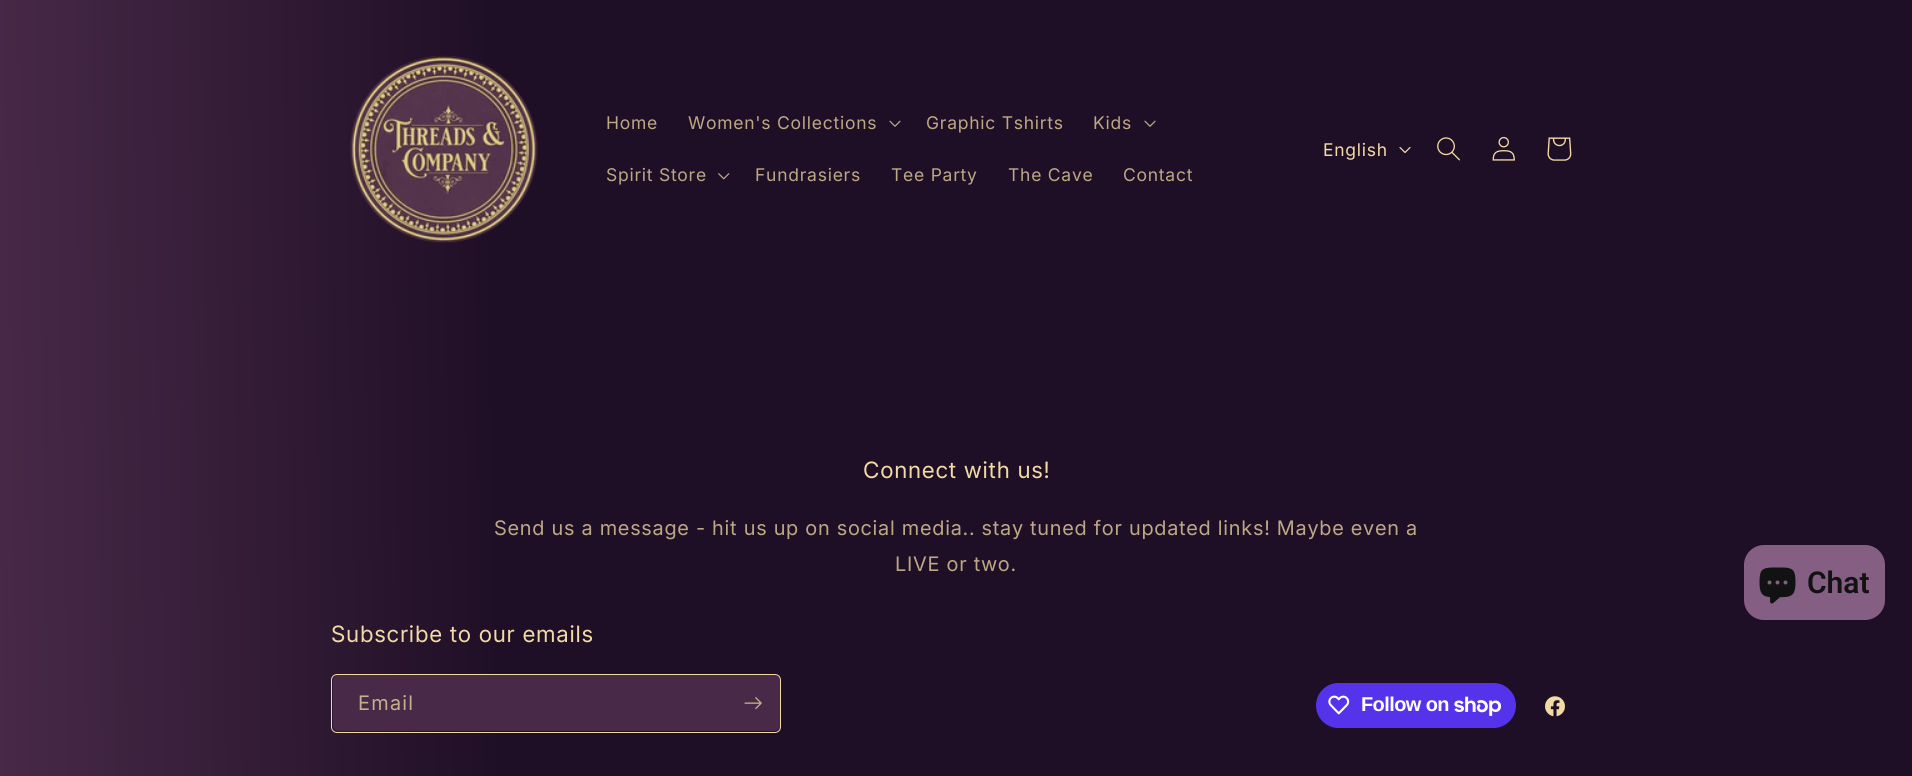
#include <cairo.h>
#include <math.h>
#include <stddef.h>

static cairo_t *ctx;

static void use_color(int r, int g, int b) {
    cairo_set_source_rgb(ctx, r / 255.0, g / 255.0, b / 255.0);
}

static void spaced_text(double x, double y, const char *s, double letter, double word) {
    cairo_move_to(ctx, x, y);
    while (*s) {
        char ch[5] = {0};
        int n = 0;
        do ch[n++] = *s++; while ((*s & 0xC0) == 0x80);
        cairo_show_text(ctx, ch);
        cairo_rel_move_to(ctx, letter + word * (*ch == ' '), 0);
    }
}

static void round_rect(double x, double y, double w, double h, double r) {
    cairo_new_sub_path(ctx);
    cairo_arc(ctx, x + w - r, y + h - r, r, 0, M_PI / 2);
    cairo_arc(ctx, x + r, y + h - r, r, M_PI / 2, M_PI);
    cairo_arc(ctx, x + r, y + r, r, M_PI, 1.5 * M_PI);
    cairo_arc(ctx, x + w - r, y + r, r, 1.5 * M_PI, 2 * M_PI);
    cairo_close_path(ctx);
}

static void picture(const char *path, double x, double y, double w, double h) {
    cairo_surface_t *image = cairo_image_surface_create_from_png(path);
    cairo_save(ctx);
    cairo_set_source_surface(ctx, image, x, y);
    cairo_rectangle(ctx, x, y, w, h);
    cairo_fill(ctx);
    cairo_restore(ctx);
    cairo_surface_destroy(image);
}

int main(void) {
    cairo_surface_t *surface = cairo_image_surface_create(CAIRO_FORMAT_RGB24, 1912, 776);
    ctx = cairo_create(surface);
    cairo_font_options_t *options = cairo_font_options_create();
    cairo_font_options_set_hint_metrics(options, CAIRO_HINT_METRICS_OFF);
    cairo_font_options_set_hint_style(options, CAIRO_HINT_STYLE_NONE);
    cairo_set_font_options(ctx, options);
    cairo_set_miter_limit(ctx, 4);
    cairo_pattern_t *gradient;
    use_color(255, 255, 255);
    cairo_paint(ctx);
    gradient = cairo_pattern_create_linear(-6.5, 405, 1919, 371);
    cairo_pattern_add_color_stop_rgba(gradient, 0, 0.282, 0.161, 0.278, 1);
    cairo_pattern_add_color_stop_rgba(gradient, 0.26, 0.122, 0.059, 0.149, 1);
    cairo_set_source(ctx, gradient);
    cairo_pattern_destroy(gradient);
    cairo_rectangle(ctx, 0, 0, 1912, 298);
    cairo_fill(ctx);
    picture("img1.png", 350, 55, 188, 188);
    cairo_select_font_face(ctx, "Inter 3", CAIRO_FONT_SLANT_NORMAL, CAIRO_FONT_WEIGHT_NORMAL);
    cairo_set_font_size(ctx, 17.5);
    use_color(189, 167, 132);
    spaced_text(606, 129, "Home", 0.75, 0);
    spaced_text(688, 129, "Women's Collections", 0.75, 0);
    picture("img2.png", 889, 120, 12, 7);
    spaced_text(926, 129, "Graphic Tshirts", 0.75, 0);
    spaced_text(1093, 129, "Kids", 0.75, 0);
    picture("img2.png", 1144, 120, 12, 7);
    spaced_text(606, 181, "Spirit Store", 0.75, 0);
    picture("img3.png", 718, 173, 12, 7);
    spaced_text(755, 181, "Fundrasiers", 0.75, 0);
    spaced_text(891, 181, "Tee Party", 0.75, 0);
    spaced_text(1008, 181, "The Cave", 0.75, 0);
    spaced_text(1123, 181, "Contact", 0.75, 0);
    use_color(241, 218, 163);
    spaced_text(1323, 156, "English", 0.75, 0);
    picture("img4.png", 1399, 147, 12, 6);
    picture("img5.png", 1437, 137, 23, 24);
    picture("img6.png", 1492, 136, 23, 25);
    picture("img7.png", 1547, 137, 25, 24);
    gradient = cairo_pattern_create_linear(-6.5, 405, 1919, 371);
    cairo_pattern_add_color_stop_rgba(gradient, 0, 0.282, 0.161, 0.278, 1);
    cairo_pattern_add_color_stop_rgba(gradient, 0.26, 0.122, 0.059, 0.149, 1);
    cairo_set_source(ctx, gradient);
    cairo_pattern_destroy(gradient);
    cairo_rectangle(ctx, 0, 298, 1912, 87);
    cairo_fill(ctx);
    cairo_rectangle(ctx, 0, 385, 1912, 391);
    cairo_fill(ctx);
    cairo_select_font_face(ctx, "Inter", CAIRO_FONT_SLANT_NORMAL, CAIRO_FONT_WEIGHT_NORMAL);
    cairo_set_font_size(ctx, 22.5);
    use_color(241, 218, 163);
    spaced_text(863, 478, "Connect with us!", 0.75, 0);
    cairo_select_font_face(ctx, "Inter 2", CAIRO_FONT_SLANT_NORMAL, CAIRO_FONT_WEIGHT_NORMAL);
    cairo_set_font_size(ctx, 20);
    use_color(189, 167, 132);
    spaced_text(494, 535, "Send us a message - hit us up on social media.. stay tuned for updated links! Maybe even a", 0.75, 0);
    spaced_text(895, 571, "LIVE or two.", 0.75, 0);
    cairo_select_font_face(ctx, "Inter", CAIRO_FONT_SLANT_NORMAL, CAIRO_FONT_WEIGHT_NORMAL);
    cairo_set_font_size(ctx, 22.5);
    use_color(241, 218, 163);
    spaced_text(331, 642, "Subscribe to our emails", 0.75, 0);
    use_color(72, 41, 71);
    round_rect(333, 675, 447, 56, 5);
    cairo_fill(ctx);
    round_rect(331.5, 674.5, 449, 58, 5.5);
    use_color(241, 218, 163);
    cairo_set_line_width(ctx, 1);
    cairo_stroke(ctx);
    cairo_select_font_face(ctx, "Inter 2", CAIRO_FONT_SLANT_NORMAL, CAIRO_FONT_WEIGHT_NORMAL);
    cairo_set_font_size(ctx, 20);
    use_color(199, 174, 140);
    spaced_text(358, 710, "Email", 1.25, 0);
    picture("img8.png", 744, 697, 18, 13);
    use_color(84, 51, 235);
    round_rect(1316, 683, 200, 45, 22.5);
    cairo_fill(ctx);
    picture("img9.png", 1328, 695, 22, 20);
    cairo_select_font_face(ctx, "Liberation Sans", CAIRO_FONT_SLANT_NORMAL, CAIRO_FONT_WEIGHT_BOLD);
    use_color(255, 255, 255);
    spaced_text(1361, 711, "Follow on", -0.6, 0);
    picture("img10.png", 1454, 696, 47, 20);
    picture("img11.png", 1545, 696, 20, 21);
    use_color(132, 94, 131);
    round_rect(1744, 545, 141, 75, 20);
    cairo_fill(ctx);
    picture("img12.png", 1759, 567, 37, 37);
    cairo_select_font_face(ctx, "Roboto SemiBold", CAIRO_FONT_SLANT_NORMAL, CAIRO_FONT_WEIGHT_NORMAL);
    cairo_set_font_size(ctx, 30);
    use_color(18, 18, 18);
    cairo_move_to(ctx, 1807, 593);
    cairo_show_text(ctx, "Chat");
    cairo_surface_write_to_png(surface, "result.png");
    cairo_font_options_destroy(options);
    cairo_destroy(ctx);
    cairo_surface_destroy(surface);
    return 0;
}
